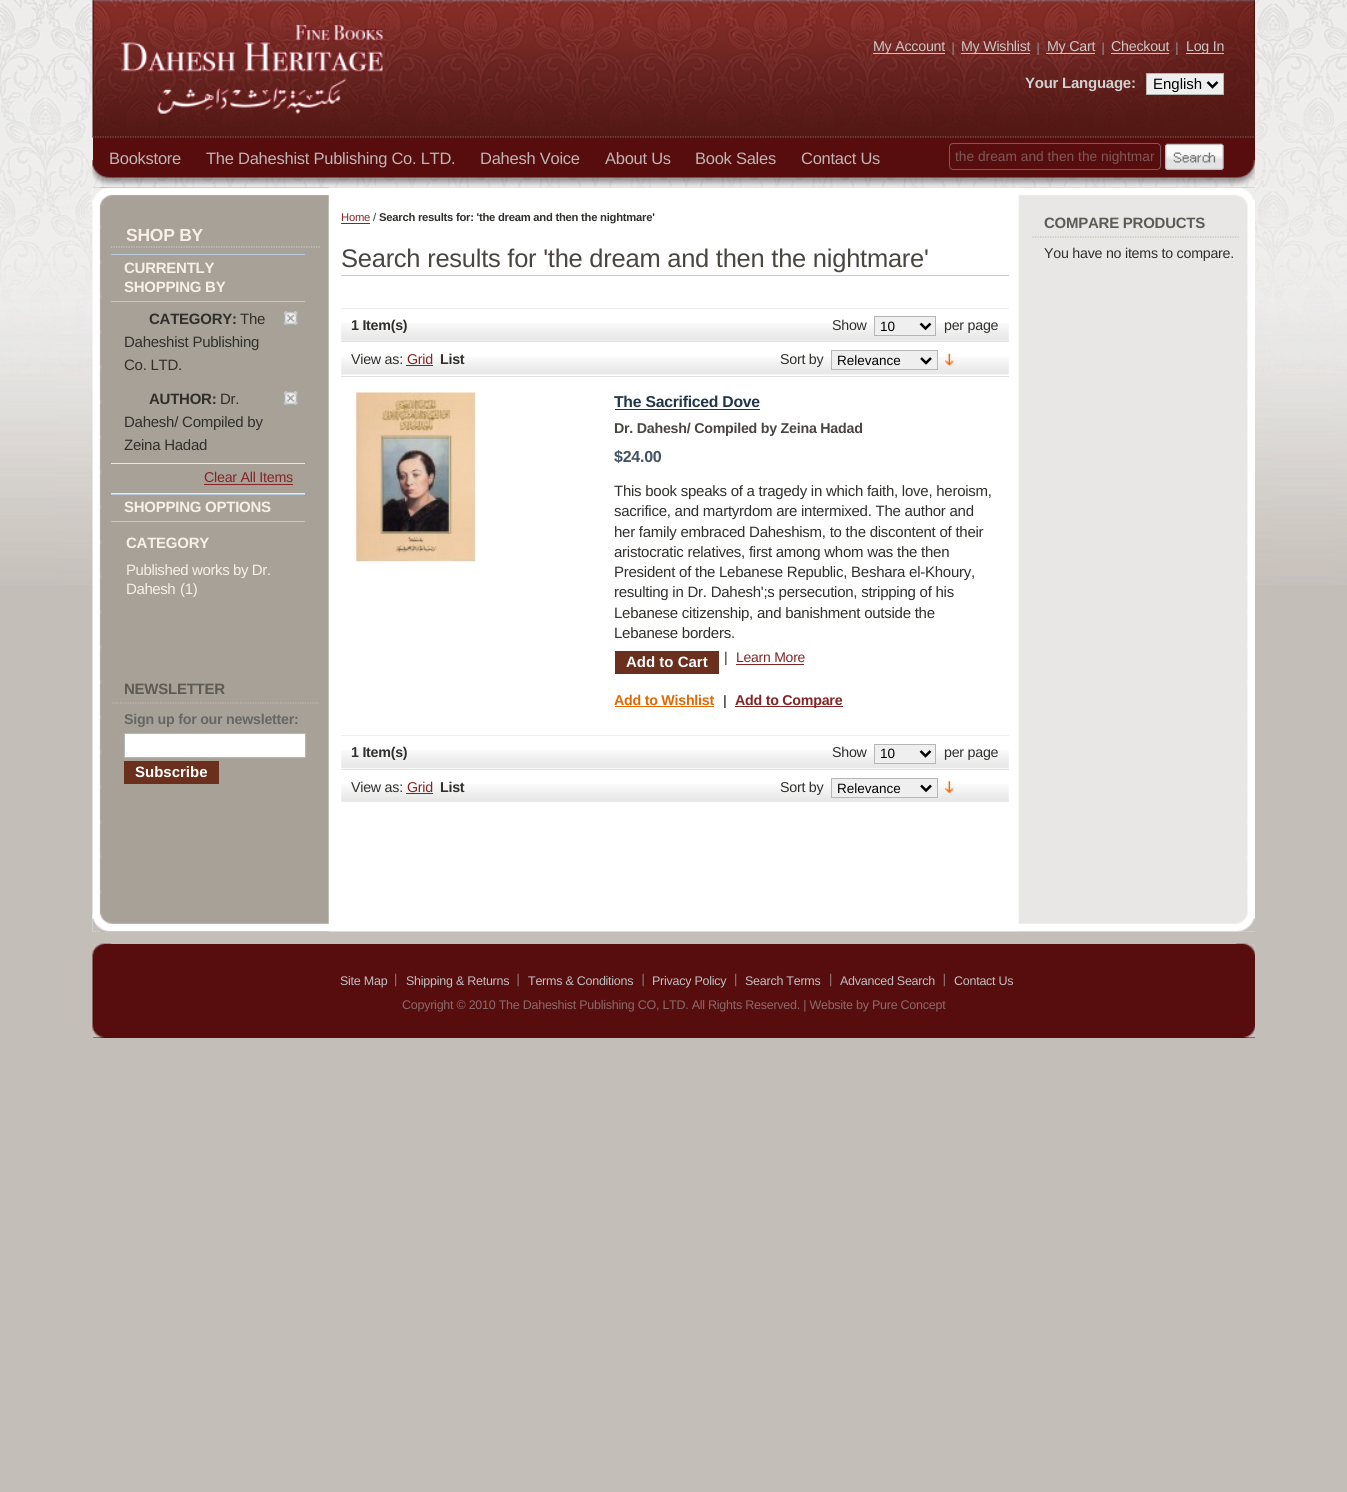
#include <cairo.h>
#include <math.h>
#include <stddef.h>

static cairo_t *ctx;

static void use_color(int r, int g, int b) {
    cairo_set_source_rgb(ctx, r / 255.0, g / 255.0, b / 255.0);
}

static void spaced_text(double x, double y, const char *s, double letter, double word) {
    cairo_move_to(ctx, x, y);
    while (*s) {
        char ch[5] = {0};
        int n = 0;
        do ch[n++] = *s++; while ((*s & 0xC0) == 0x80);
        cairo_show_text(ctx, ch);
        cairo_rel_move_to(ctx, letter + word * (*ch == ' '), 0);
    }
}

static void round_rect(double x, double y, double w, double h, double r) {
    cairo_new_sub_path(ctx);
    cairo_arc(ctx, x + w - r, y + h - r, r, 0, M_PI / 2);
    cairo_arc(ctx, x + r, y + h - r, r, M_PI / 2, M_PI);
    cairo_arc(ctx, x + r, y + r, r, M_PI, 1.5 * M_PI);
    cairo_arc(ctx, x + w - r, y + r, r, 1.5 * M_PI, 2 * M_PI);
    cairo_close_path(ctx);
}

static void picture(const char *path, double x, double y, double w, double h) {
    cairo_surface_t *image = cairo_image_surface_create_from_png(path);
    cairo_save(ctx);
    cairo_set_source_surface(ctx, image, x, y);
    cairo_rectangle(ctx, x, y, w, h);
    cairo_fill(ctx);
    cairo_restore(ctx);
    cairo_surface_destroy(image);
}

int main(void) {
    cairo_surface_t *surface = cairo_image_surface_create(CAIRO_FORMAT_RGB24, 1347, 1492);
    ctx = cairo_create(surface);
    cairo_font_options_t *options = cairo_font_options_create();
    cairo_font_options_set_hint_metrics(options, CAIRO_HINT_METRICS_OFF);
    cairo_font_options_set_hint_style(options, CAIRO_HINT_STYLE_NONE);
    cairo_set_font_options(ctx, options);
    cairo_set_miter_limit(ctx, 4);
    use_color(195, 190, 183);
    cairo_paint(ctx);
    picture("img1.png", 0, 0, 1347, 585);
    use_color(87, 13, 13);
    cairo_rectangle(ctx, 93, 137, 1162, 51);
    cairo_fill(ctx);
    picture("img2.png", 92, 160, 1163, 28);
    picture("img3.png", 92, 0, 1163, 138);
    cairo_new_path(ctx);
    cairo_move_to(ctx, 92.5, 137);
    cairo_line_to(ctx, 1255, 137);
    use_color(126, 89, 89);
    cairo_set_line_width(ctx, 1.2);
    cairo_set_dash(ctx, (double[]){1.25, 1.25}, 2, 0);
    cairo_stroke(ctx);
    picture("img4.png", 121, 24, 262, 90);
    use_color(202, 198, 198);
    cairo_rectangle(ctx, 873, 53, 72, 1);
    cairo_fill(ctx);
    cairo_select_font_face(ctx, "Liberation Sans", CAIRO_FONT_SLANT_NORMAL, CAIRO_FONT_WEIGHT_NORMAL);
    cairo_set_font_size(ctx, 14.25);
    spaced_text(873, 51, "My Account", -0.25, 0);
    picture("img5.png", 952, 42, 2, 13);
    cairo_rectangle(ctx, 961, 53, 69, 1);
    cairo_fill(ctx);
    spaced_text(961, 51, "My Wishlist", -0.25, 0);
    picture("img6.png", 1037, 42, 2, 13);
    cairo_rectangle(ctx, 1046, 53, 49, 1);
    cairo_fill(ctx);
    spaced_text(1047, 51, "My Cart", -0.25, 0);
    picture("img7.png", 1102, 42, 2, 13);
    spaced_text(1111, 51, "Checkout", -0.25, 0);
    cairo_rectangle(ctx, 1111, 53, 58, 1);
    cairo_fill(ctx);
    picture("img8.png", 1176, 42, 2, 13);
    cairo_rectangle(ctx, 1186, 53, 38, 1);
    cairo_fill(ctx);
    spaced_text(1186, 51, "Log In", -0.25, 0);
    cairo_select_font_face(ctx, "Liberation Sans", CAIRO_FONT_SLANT_NORMAL, CAIRO_FONT_WEIGHT_BOLD);
    cairo_set_font_size(ctx, 15);
    use_color(209, 209, 209);
    spaced_text(1025, 88, "Your Language:", -0.25, 0);
    use_color(239, 239, 239);
    cairo_rectangle(ctx, 1146.5, 73.5, 77, 21);
    cairo_fill_preserve(ctx);
    use_color(182, 182, 182);
    cairo_set_line_width(ctx, 1);
    cairo_set_dash(ctx, NULL, 0, 0);
    cairo_stroke(ctx);
    cairo_new_path(ctx);
    cairo_move_to(ctx, 1207.5, 82);
    cairo_line_to(ctx, 1212.5, 87);
    cairo_line_to(ctx, 1217.5, 82);
    use_color(0, 0, 0);
    cairo_set_line_width(ctx, 2.5);
    cairo_stroke(ctx);
    cairo_select_font_face(ctx, "Liberation Sans", CAIRO_FONT_SLANT_NORMAL, CAIRO_FONT_WEIGHT_NORMAL);
    cairo_move_to(ctx, 1153, 89);
    cairo_show_text(ctx, "English");
    cairo_set_font_size(ctx, 16.5);
    use_color(191, 181, 181);
    spaced_text(109, 164, "Bookstore", -0.25, 0);
    spaced_text(206, 164, "The Daheshist Publishing Co. LTD.", -0.25, 0);
    spaced_text(480, 164, "Dahesh Voice", -0.25, 0);
    spaced_text(605, 164, "About Us", -0.25, 0);
    spaced_text(695, 164, "Book Sales", -0.25, 0);
    spaced_text(801, 164, "Contact Us", -0.25, 0);
    round_rect(949.5, 143.5, 211, 26, 3.5);
    use_color(126, 89, 89);
    cairo_set_line_width(ctx, 1);
    cairo_stroke(ctx);
    cairo_set_font_size(ctx, 13.75);
    cairo_move_to(ctx, 955, 161);
    cairo_show_text(ctx, "the dream and then the nightmar");
    picture("img9.png", 1165, 143, 59, 27);
    picture("img10.png", 92, 187, 1163, 745);
    picture("img11.png", 92, 187, 1163, 18);
    picture("img12.png", 92, 913, 1163, 19);
    cairo_new_path(ctx);
    cairo_move_to(ctx, 111, 247);
    cairo_line_to(ctx, 320, 247);
    use_color(206, 201, 193);
    cairo_set_line_width(ctx, 1.2);
    cairo_set_dash(ctx, (double[]){1.25, 1.25}, 2, 0);
    cairo_stroke(ctx);
    cairo_select_font_face(ctx, "Liberation Sans", CAIRO_FONT_SLANT_NORMAL, CAIRO_FONT_WEIGHT_BOLD);
    cairo_set_font_size(ctx, 17.5);
    use_color(247, 240, 230);
    spaced_text(126, 241, "SHOP BY", -0.25, 0);
    use_color(185, 204, 221);
    cairo_rectangle(ctx, 111, 254, 194, 1);
    cairo_fill(ctx);
    cairo_rectangle(ctx, 111, 301, 194, 1);
    cairo_fill(ctx);
    cairo_set_font_size(ctx, 15);
    use_color(247, 240, 230);
    spaced_text(124, 273, "CURRENTLY", -0.25, 0);
    spaced_text(124, 292, "SHOPPING BY", -0.25, 0);
    use_color(49, 47, 44);
    spaced_text(149, 324, "CATEGORY:", -0.25, 0);
    cairo_select_font_face(ctx, "Liberation Sans", CAIRO_FONT_SLANT_NORMAL, CAIRO_FONT_WEIGHT_NORMAL);
    spaced_text(240, 324, "The", -0.25, 0);
    picture("img13.png", 283, 311, 15, 14);
    spaced_text(124, 347, "Daheshist Publishing", -0.25, 0);
    spaced_text(124, 370, "Co. LTD.", -0.25, 0);
    cairo_select_font_face(ctx, "Liberation Sans", CAIRO_FONT_SLANT_NORMAL, CAIRO_FONT_WEIGHT_BOLD);
    spaced_text(149, 404, "AUTHOR:", -0.25, 0);
    cairo_select_font_face(ctx, "Liberation Sans", CAIRO_FONT_SLANT_NORMAL, CAIRO_FONT_WEIGHT_NORMAL);
    spaced_text(220, 404, "Dr.", -0.25, 0);
    picture("img13.png", 283, 391, 15, 14);
    spaced_text(124, 427, "Dahesh/ Compiled by", -0.25, 0);
    spaced_text(124, 450, "Zeina Hadad", -0.25, 0);
    use_color(232, 232, 232);
    cairo_rectangle(ctx, 111, 463, 194, 1);
    cairo_fill(ctx);
    cairo_rectangle(ctx, 111, 493, 194, 1);
    cairo_fill(ctx);
    cairo_set_font_size(ctx, 14.25);
    use_color(131, 37, 37);
    spaced_text(204, 482, "Clear All Items", -0.25, 0);
    cairo_rectangle(ctx, 204, 484, 89, 1);
    cairo_fill(ctx);
    use_color(185, 204, 221);
    cairo_rectangle(ctx, 111, 494, 194, 1);
    cairo_fill(ctx);
    cairo_rectangle(ctx, 111, 521, 194, 1);
    cairo_fill(ctx);
    cairo_select_font_face(ctx, "Liberation Sans", CAIRO_FONT_SLANT_NORMAL, CAIRO_FONT_WEIGHT_BOLD);
    cairo_set_font_size(ctx, 15);
    use_color(247, 240, 230);
    spaced_text(124, 512, "SHOPPING OPTIONS", -0.25, 0);
    spaced_text(126, 548, "CATEGORY", -0.25, 0);
    cairo_select_font_face(ctx, "Liberation Sans", CAIRO_FONT_SLANT_NORMAL, CAIRO_FONT_WEIGHT_NORMAL);
    spaced_text(126, 575, "Published works by Dr.", -0.4, 0);
    spaced_text(126, 594, "Dahesh", -0.4, 0);
    spaced_text(180, 594, "(1)", -0.25, 0);
    cairo_new_path(ctx);
    cairo_move_to(ctx, 112.5, 703);
    cairo_line_to(ctx, 319, 703);
    use_color(194, 188, 178);
    cairo_stroke(ctx);
    cairo_select_font_face(ctx, "Liberation Sans", CAIRO_FONT_SLANT_NORMAL, CAIRO_FONT_WEIGHT_BOLD);
    use_color(94, 90, 84);
    spaced_text(124, 694, "NEWSLETTER", -0.25, 0);
    cairo_set_font_size(ctx, 14.25);
    use_color(102, 102, 102);
    spaced_text(124, 724, "Sign up for our newsletter:", -0.25, 0);
    use_color(255, 255, 255);
    cairo_rectangle(ctx, 124.5, 733.5, 181, 24);
    cairo_fill_preserve(ctx);
    use_color(182, 182, 182);
    cairo_set_line_width(ctx, 1);
    cairo_set_dash(ctx, NULL, 0, 0);
    cairo_stroke(ctx);
    use_color(107, 47, 30);
    cairo_rectangle(ctx, 124, 761, 95, 23);
    cairo_fill(ctx);
    cairo_set_font_size(ctx, 15);
    use_color(255, 255, 255);
    cairo_move_to(ctx, 135, 777);
    cairo_show_text(ctx, "Subscribe");
    cairo_select_font_face(ctx, "Liberation Sans", CAIRO_FONT_SLANT_NORMAL, CAIRO_FONT_WEIGHT_NORMAL);
    cairo_set_font_size(ctx, 11.25);
    use_color(131, 37, 37);
    spaced_text(341, 221, "Home", -0.25, 0);
    cairo_rectangle(ctx, 341, 223, 29, 1);
    cairo_fill(ctx);
    use_color(49, 47, 44);
    spaced_text(373, 221, "/", -0.25, 0);
    cairo_select_font_face(ctx, "Liberation Sans", CAIRO_FONT_SLANT_NORMAL, CAIRO_FONT_WEIGHT_BOLD);
    spaced_text(379, 221, "Search results for: 'the dream and then the nightmare'", -0.25, 0);
    use_color(204, 204, 204);
    cairo_rectangle(ctx, 341, 275, 668, 1);
    cairo_fill(ctx);
    cairo_select_font_face(ctx, "Liberation Sans", CAIRO_FONT_SLANT_NORMAL, CAIRO_FONT_WEIGHT_NORMAL);
    cairo_set_font_size(ctx, 25.5);
    use_color(73, 70, 66);
    spaced_text(341, 267, "Search results for 'the dream and then the nightmare'", -0.25, 0);
    picture("img14.png", 341, 323, 668, 18);
    use_color(238, 238, 238);
    cairo_rectangle(ctx, 341, 308, 668, 1);
    cairo_fill(ctx);
    cairo_select_font_face(ctx, "Liberation Sans", CAIRO_FONT_SLANT_NORMAL, CAIRO_FONT_WEIGHT_BOLD);
    cairo_set_font_size(ctx, 14.25);
    use_color(49, 47, 44);
    spaced_text(351, 330, "1 Item(s)", -0.25, 0);
    cairo_select_font_face(ctx, "Liberation Sans", CAIRO_FONT_SLANT_NORMAL, CAIRO_FONT_WEIGHT_NORMAL);
    spaced_text(832, 330, "Show", -0.25, 0);
    use_color(239, 239, 239);
    cairo_rectangle(ctx, 874.5, 316.5, 61, 19);
    cairo_fill_preserve(ctx);
    use_color(182, 182, 182);
    cairo_stroke(ctx);
    cairo_new_path(ctx);
    cairo_move_to(ctx, 920.5, 323.5);
    cairo_line_to(ctx, 925.5, 328.5);
    cairo_line_to(ctx, 930.5, 323.5);
    use_color(0, 0, 0);
    cairo_set_line_width(ctx, 2.5);
    cairo_stroke(ctx);
    cairo_set_font_size(ctx, 13.5);
    cairo_move_to(ctx, 880, 331);
    cairo_show_text(ctx, "10");
    cairo_set_font_size(ctx, 14.25);
    use_color(49, 47, 44);
    spaced_text(944, 330, "per page", -0.25, 0);
    picture("img15.png", 341, 357, 668, 18);
    use_color(226, 226, 226);
    cairo_rectangle(ctx, 341, 341, 668, 1);
    cairo_fill(ctx);
    use_color(49, 47, 44);
    spaced_text(351, 364, "View as:", -0.25, 0);
    use_color(131, 37, 37);
    spaced_text(407, 364, "Grid", -0.25, 0);
    cairo_rectangle(ctx, 406, 365, 27, 1);
    cairo_fill(ctx);
    cairo_select_font_face(ctx, "Liberation Sans", CAIRO_FONT_SLANT_NORMAL, CAIRO_FONT_WEIGHT_BOLD);
    use_color(49, 47, 44);
    spaced_text(440, 364, "List", -0.25, 0);
    cairo_select_font_face(ctx, "Liberation Sans", CAIRO_FONT_SLANT_NORMAL, CAIRO_FONT_WEIGHT_NORMAL);
    spaced_text(780, 364, "Sort by", -0.25, 0);
    use_color(239, 239, 239);
    cairo_rectangle(ctx, 831.5, 350.5, 106, 19);
    cairo_fill_preserve(ctx);
    use_color(182, 182, 182);
    cairo_set_line_width(ctx, 1);
    cairo_stroke(ctx);
    cairo_new_path(ctx);
    cairo_move_to(ctx, 921, 358);
    cairo_line_to(ctx, 926, 363);
    cairo_line_to(ctx, 931, 358);
    use_color(0, 0, 0);
    cairo_set_line_width(ctx, 2.5);
    cairo_stroke(ctx);
    cairo_set_font_size(ctx, 13.5);
    cairo_move_to(ctx, 837, 365);
    cairo_show_text(ctx, "Relevance");
    picture("img16.png", 945, 353, 9, 14);
    use_color(223, 223, 223);
    cairo_rectangle(ctx, 341, 376, 668, 1);
    cairo_fill(ctx);
    picture("img17.png", 354, 392, 123, 170);
    cairo_select_font_face(ctx, "Liberation Sans", CAIRO_FONT_SLANT_NORMAL, CAIRO_FONT_WEIGHT_BOLD);
    cairo_set_font_size(ctx, 15.75);
    use_color(32, 53, 72);
    spaced_text(614, 407, "The Sacrificed Dove", -0.25, 0);
    cairo_rectangle(ctx, 615, 409, 145, 1);
    cairo_fill(ctx);
    cairo_set_font_size(ctx, 14.25);
    use_color(73, 70, 66);
    spaced_text(614, 433, "Dr. Dahesh/ Compiled by Zeina Hadad", -0.25, 0);
    cairo_set_font_size(ctx, 16);
    use_color(66, 82, 101);
    spaced_text(614, 462, "$24.00", -0.25, 0);
    cairo_select_font_face(ctx, "Liberation Sans", CAIRO_FONT_SLANT_NORMAL, CAIRO_FONT_WEIGHT_NORMAL);
    cairo_set_font_size(ctx, 15);
    use_color(49, 47, 44);
    spaced_text(614, 496, "This book speaks of a tragedy in which faith, love, heroism,", -0.25, 0);
    spaced_text(614, 516, "sacrifice, and martyrdom are intermixed. The author and", -0.25, 0);
    spaced_text(614, 537, "her family embraced Daheshism, to the discontent of their", -0.25, 0);
    spaced_text(614, 557, "aristocratic relatives, first among whom was the then", -0.25, 0);
    spaced_text(614, 577, "President of the Lebanese Republic, Beshara el-Khoury,", -0.25, 0);
    spaced_text(614, 597, "resulting in Dr. Dahesh';s persecution, stripping of his", -0.25, 0);
    spaced_text(614, 618, "Lebanese citizenship, and banishment outside the", -0.25, 0);
    spaced_text(614, 638, "Lebanese borders.", -0.25, 0);
    use_color(107, 47, 30);
    cairo_rectangle(ctx, 615, 651, 104, 23);
    cairo_fill(ctx);
    cairo_select_font_face(ctx, "Liberation Sans", CAIRO_FONT_SLANT_NORMAL, CAIRO_FONT_WEIGHT_BOLD);
    use_color(255, 255, 255);
    cairo_move_to(ctx, 626, 667);
    cairo_show_text(ctx, "Add to Cart");
    cairo_select_font_face(ctx, "Liberation Sans", CAIRO_FONT_SLANT_NORMAL, CAIRO_FONT_WEIGHT_NORMAL);
    cairo_set_font_size(ctx, 14.25);
    use_color(49, 47, 44);
    spaced_text(724, 662, "|", -0.25, 0);
    cairo_set_font_size(ctx, 14);
    use_color(131, 37, 37);
    spaced_text(736, 662, "Learn More", -0.25, 0);
    cairo_rectangle(ctx, 736, 664, 68, 1);
    cairo_fill(ctx);
    cairo_select_font_face(ctx, "Liberation Sans", CAIRO_FONT_SLANT_NORMAL, CAIRO_FONT_WEIGHT_BOLD);
    cairo_set_font_size(ctx, 14.25);
    use_color(226, 103, 3);
    spaced_text(614, 705, "Add to Wishlist", -0.25, 0);
    cairo_rectangle(ctx, 615, 706, 99, 1);
    cairo_fill(ctx);
    cairo_set_font_size(ctx, 13.5);
    use_color(85, 85, 85);
    spaced_text(723, 705, "|", -0.25, 0);
    use_color(131, 37, 37);
    cairo_rectangle(ctx, 735, 706, 108, 1);
    cairo_fill(ctx);
    cairo_set_font_size(ctx, 14.25);
    spaced_text(735, 705, "Add to Compare", -0.25, 0);
    picture("img18.png", 341, 750, 668, 19);
    use_color(238, 238, 238);
    cairo_rectangle(ctx, 341, 735, 668, 1);
    cairo_fill(ctx);
    use_color(49, 47, 44);
    spaced_text(351, 757, "1 Item(s)", -0.25, 0);
    cairo_select_font_face(ctx, "Liberation Sans", CAIRO_FONT_SLANT_NORMAL, CAIRO_FONT_WEIGHT_NORMAL);
    spaced_text(832, 757, "Show", -0.25, 0);
    use_color(239, 239, 239);
    cairo_rectangle(ctx, 874.5, 744.5, 61, 19);
    cairo_fill_preserve(ctx);
    use_color(182, 182, 182);
    cairo_set_line_width(ctx, 1);
    cairo_stroke(ctx);
    cairo_new_path(ctx);
    cairo_move_to(ctx, 920.5, 751);
    cairo_line_to(ctx, 925.5, 756);
    cairo_line_to(ctx, 930.5, 751);
    use_color(0, 0, 0);
    cairo_set_line_width(ctx, 2.5);
    cairo_stroke(ctx);
    cairo_set_font_size(ctx, 13.5);
    cairo_move_to(ctx, 880, 758);
    cairo_show_text(ctx, "10");
    cairo_set_font_size(ctx, 14.25);
    use_color(49, 47, 44);
    spaced_text(944, 757, "per page", -0.25, 0);
    picture("img19.png", 341, 784, 668, 18);
    use_color(226, 226, 226);
    cairo_rectangle(ctx, 341, 769, 668, 1);
    cairo_fill(ctx);
    use_color(49, 47, 44);
    spaced_text(351, 792, "View as:", -0.25, 0);
    use_color(131, 37, 37);
    spaced_text(407, 792, "Grid", -0.25, 0);
    cairo_rectangle(ctx, 406, 793, 27, 1);
    cairo_fill(ctx);
    cairo_select_font_face(ctx, "Liberation Sans", CAIRO_FONT_SLANT_NORMAL, CAIRO_FONT_WEIGHT_BOLD);
    use_color(49, 47, 44);
    spaced_text(440, 792, "List", -0.25, 0);
    cairo_select_font_face(ctx, "Liberation Sans", CAIRO_FONT_SLANT_NORMAL, CAIRO_FONT_WEIGHT_NORMAL);
    spaced_text(780, 792, "Sort by", -0.25, 0);
    use_color(239, 239, 239);
    cairo_rectangle(ctx, 831.5, 778.5, 106, 19);
    cairo_fill_preserve(ctx);
    use_color(182, 182, 182);
    cairo_set_line_width(ctx, 1);
    cairo_stroke(ctx);
    cairo_new_path(ctx);
    cairo_move_to(ctx, 921, 785.5);
    cairo_line_to(ctx, 926, 790.5);
    cairo_line_to(ctx, 931, 785.5);
    use_color(0, 0, 0);
    cairo_set_line_width(ctx, 2.5);
    cairo_stroke(ctx);
    cairo_set_font_size(ctx, 13.5);
    cairo_move_to(ctx, 837, 793);
    cairo_show_text(ctx, "Relevance");
    picture("img20.png", 945, 781, 9, 13);
    cairo_new_path(ctx);
    cairo_move_to(ctx, 1032.5, 237);
    cairo_line_to(ctx, 1239, 237);
    use_color(194, 188, 178);
    cairo_set_line_width(ctx, 1.2);
    cairo_set_dash(ctx, (double[]){1.25, 1.25}, 2, 0);
    cairo_stroke(ctx);
    cairo_select_font_face(ctx, "Liberation Sans", CAIRO_FONT_SLANT_NORMAL, CAIRO_FONT_WEIGHT_BOLD);
    cairo_set_font_size(ctx, 15);
    use_color(94, 90, 84);
    spaced_text(1044, 228, "COMPARE PRODUCTS", -0.25, 0);
    cairo_select_font_face(ctx, "Liberation Sans", CAIRO_FONT_SLANT_NORMAL, CAIRO_FONT_WEIGHT_NORMAL);
    cairo_set_font_size(ctx, 14.25);
    use_color(49, 47, 44);
    spaced_text(1044, 258, "You have no items to compare.", -0.25, 0);
    use_color(87, 13, 13);
    cairo_rectangle(ctx, 93, 944, 1162, 94);
    cairo_fill(ctx);
    picture("img21.png", 92, 943, 20, 95);
    picture("img22.png", 1236, 943, 19, 95);
    cairo_set_font_size(ctx, 12.5);
    use_color(192, 193, 195);
    spaced_text(340, 985, "Site Map", -0.25, 0);
    picture("img23.png", 395, 973, 2, 14);
    spaced_text(406, 985, "Shipping & Returns", -0.25, 0);
    picture("img24.png", 517, 973, 2, 14);
    spaced_text(528, 985, "Terms & Conditions", -0.25, 0);
    picture("img24.png", 642, 973, 2, 14);
    spaced_text(652, 985, "Privacy Policy", -0.25, 0);
    picture("img23.png", 735, 973, 2, 14);
    spaced_text(745, 985, "Search Terms", -0.25, 0);
    picture("img23.png", 830, 973, 2, 14);
    spaced_text(840, 985, "Advanced Search", -0.25, 0);
    picture("img25.png", 943, 973, 2, 14);
    spaced_text(954, 985, "Contact Us", -0.25, 0);
    use_color(138, 106, 107);
    spaced_text(402, 1009, "Copyright © 2010 The Daheshist Publishing CO, LTD. All Rights Reserved. | Website by Pure Concept", -0.25, 0);
    cairo_surface_write_to_png(surface, "result.png");
    cairo_font_options_destroy(options);
    cairo_destroy(ctx);
    cairo_surface_destroy(surface);
    return 0;
}
